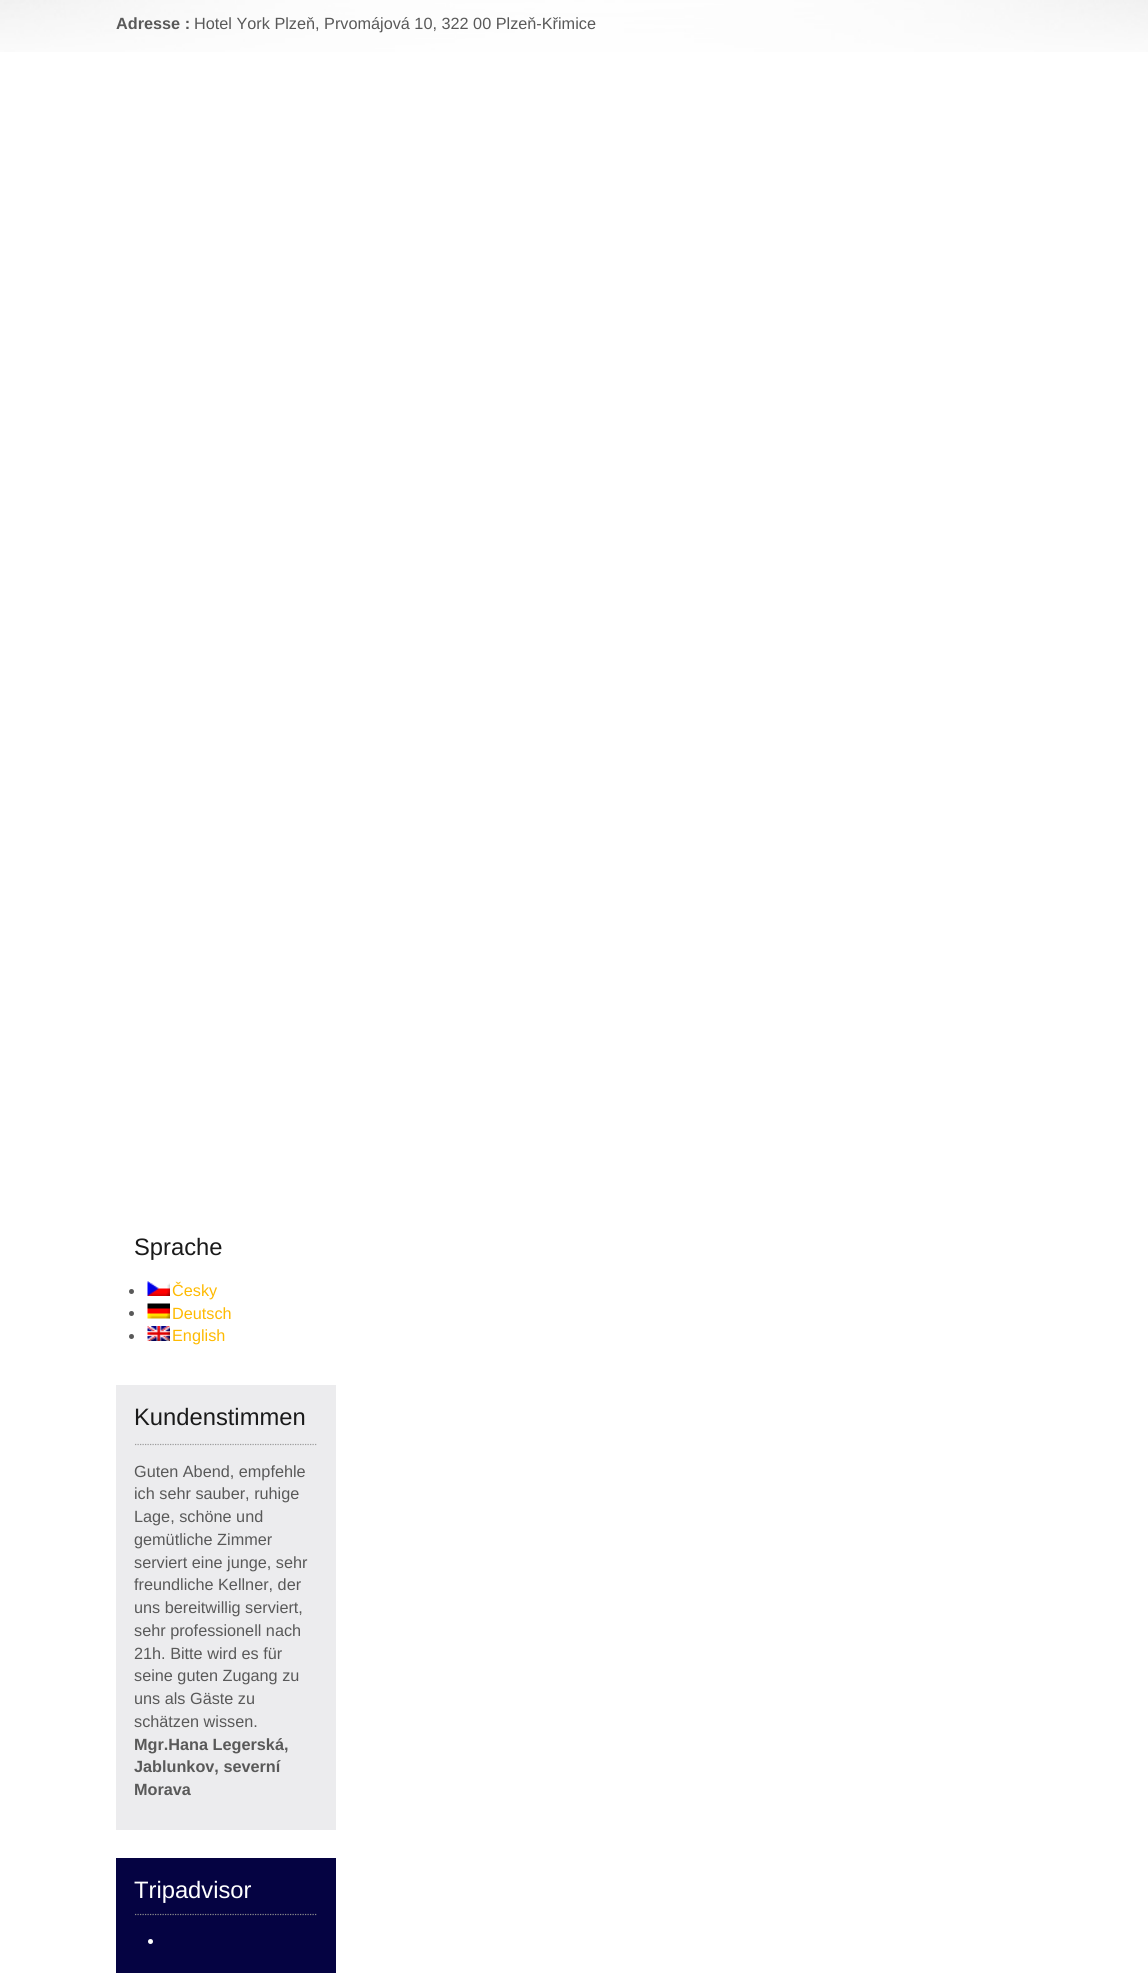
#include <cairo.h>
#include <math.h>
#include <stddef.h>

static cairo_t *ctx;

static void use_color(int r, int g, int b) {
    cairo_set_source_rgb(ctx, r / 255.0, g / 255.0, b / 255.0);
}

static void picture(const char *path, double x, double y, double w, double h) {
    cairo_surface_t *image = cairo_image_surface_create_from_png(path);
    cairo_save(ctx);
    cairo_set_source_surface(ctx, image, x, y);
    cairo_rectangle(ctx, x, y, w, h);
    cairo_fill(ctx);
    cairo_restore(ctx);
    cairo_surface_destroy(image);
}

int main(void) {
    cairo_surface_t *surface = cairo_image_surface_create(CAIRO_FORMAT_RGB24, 1148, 1973);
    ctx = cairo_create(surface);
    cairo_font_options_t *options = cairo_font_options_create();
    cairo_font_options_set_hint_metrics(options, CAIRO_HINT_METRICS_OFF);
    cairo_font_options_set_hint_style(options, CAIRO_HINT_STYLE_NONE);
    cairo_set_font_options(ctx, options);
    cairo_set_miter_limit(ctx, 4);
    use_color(255, 255, 255);
    cairo_paint(ctx);
    picture("img1.png", 0, 0, 1148, 52);
    cairo_select_font_face(ctx, "Liberation Sans", CAIRO_FONT_SLANT_NORMAL, CAIRO_FONT_WEIGHT_BOLD);
    cairo_set_font_size(ctx, 16.25);
    use_color(89, 89, 89);
    cairo_move_to(ctx, 116, 29);
    cairo_show_text(ctx, "Adresse :");
    cairo_select_font_face(ctx, "Liberation Sans", CAIRO_FONT_SLANT_NORMAL, CAIRO_FONT_WEIGHT_NORMAL);
    cairo_move_to(ctx, 194, 29);
    cairo_show_text(ctx, "Hotel York Plzeň, Prvomájová 10, 322 00 Plzeň-Křimice");
    cairo_set_font_size(ctx, 23.75);
    use_color(26, 26, 26);
    cairo_move_to(ctx, 134, 1255);
    cairo_show_text(ctx, "Sprache");
    use_color(89, 89, 89);
    cairo_new_path(ctx);
    cairo_arc(ctx, 131.5, 1291.5, 2.5, 0, 2 * M_PI);
    cairo_fill(ctx);
    picture("img2.png", 147, 1281, 23, 15);
    cairo_set_font_size(ctx, 16.25);
    use_color(254, 186, 2);
    cairo_move_to(ctx, 172, 1296);
    cairo_show_text(ctx, "Česky");
    use_color(89, 89, 89);
    cairo_new_path(ctx);
    cairo_arc(ctx, 131.5, 1313.5, 2.5, 0, 2 * M_PI);
    cairo_fill(ctx);
    picture("img3.png", 147, 1303, 23, 16);
    use_color(254, 186, 2);
    cairo_move_to(ctx, 172, 1319);
    cairo_show_text(ctx, "Deutsch");
    use_color(89, 89, 89);
    cairo_new_path(ctx);
    cairo_arc(ctx, 131.5, 1336.5, 2.5, 0, 2 * M_PI);
    cairo_fill(ctx);
    picture("img4.png", 147, 1326, 23, 15);
    use_color(254, 186, 2);
    cairo_move_to(ctx, 172, 1341);
    cairo_show_text(ctx, "English");
    use_color(236, 236, 238);
    cairo_rectangle(ctx, 116, 1385, 220, 445);
    cairo_fill(ctx);
    cairo_new_path(ctx);
    cairo_move_to(ctx, 135, 1444.5);
    cairo_line_to(ctx, 317.5, 1444.5);
    use_color(156, 156, 156);
    cairo_set_line_width(ctx, 1.2);
    cairo_set_dash(ctx, (double[]){1.25, 1.25}, 2, 0);
    cairo_stroke(ctx);
    cairo_set_font_size(ctx, 23.75);
    use_color(26, 26, 26);
    cairo_move_to(ctx, 134, 1425);
    cairo_show_text(ctx, "Kundenstimmen");
    cairo_set_font_size(ctx, 16.25);
    use_color(89, 89, 89);
    cairo_move_to(ctx, 134, 1477);
    cairo_show_text(ctx, "Guten Abend, empfehle");
    cairo_move_to(ctx, 134, 1499);
    cairo_show_text(ctx, "ich sehr sauber, ruhige");
    cairo_move_to(ctx, 134, 1522);
    cairo_show_text(ctx, "Lage, schöne und");
    cairo_move_to(ctx, 134, 1545);
    cairo_show_text(ctx, "gemütliche Zimmer");
    cairo_move_to(ctx, 134, 1568);
    cairo_show_text(ctx, "serviert eine junge, sehr");
    cairo_move_to(ctx, 134, 1590);
    cairo_show_text(ctx, "freundliche Kellner, der");
    cairo_move_to(ctx, 134, 1613);
    cairo_show_text(ctx, "uns bereitwillig serviert,");
    cairo_move_to(ctx, 134, 1636);
    cairo_show_text(ctx, "sehr professionell nach");
    cairo_move_to(ctx, 134, 1659);
    cairo_show_text(ctx, "21h. Bitte wird es für");
    cairo_move_to(ctx, 134, 1681);
    cairo_show_text(ctx, "seine guten Zugang zu");
    cairo_move_to(ctx, 134, 1704);
    cairo_show_text(ctx, "uns als Gäste zu");
    cairo_move_to(ctx, 134, 1727);
    cairo_show_text(ctx, "schätzen wissen.");
    cairo_select_font_face(ctx, "Liberation Sans", CAIRO_FONT_SLANT_NORMAL, CAIRO_FONT_WEIGHT_BOLD);
    cairo_move_to(ctx, 134, 1750);
    cairo_show_text(ctx, "Mgr.Hana Legerská,");
    cairo_move_to(ctx, 134, 1772);
    cairo_show_text(ctx, "Jablunkov, severní");
    cairo_move_to(ctx, 134, 1795);
    cairo_show_text(ctx, "Morava");
    use_color(5, 3, 66);
    cairo_rectangle(ctx, 116, 1858, 220, 115);
    cairo_fill(ctx);
    cairo_new_path(ctx);
    cairo_move_to(ctx, 135, 1914.5);
    cairo_line_to(ctx, 317.5, 1914.5);
    use_color(138, 138, 138);
    cairo_stroke(ctx);
    cairo_select_font_face(ctx, "Liberation Sans", CAIRO_FONT_SLANT_NORMAL, CAIRO_FONT_WEIGHT_NORMAL);
    cairo_set_font_size(ctx, 23.75);
    use_color(255, 255, 255);
    cairo_move_to(ctx, 134, 1898);
    cairo_show_text(ctx, "Tripadvisor");
    cairo_new_path(ctx);
    cairo_arc(ctx, 150.5, 1941.5, 2.5, 0, 2 * M_PI);
    cairo_fill(ctx);
    cairo_surface_write_to_png(surface, "result.png");
    cairo_font_options_destroy(options);
    cairo_destroy(ctx);
    cairo_surface_destroy(surface);
    return 0;
}
